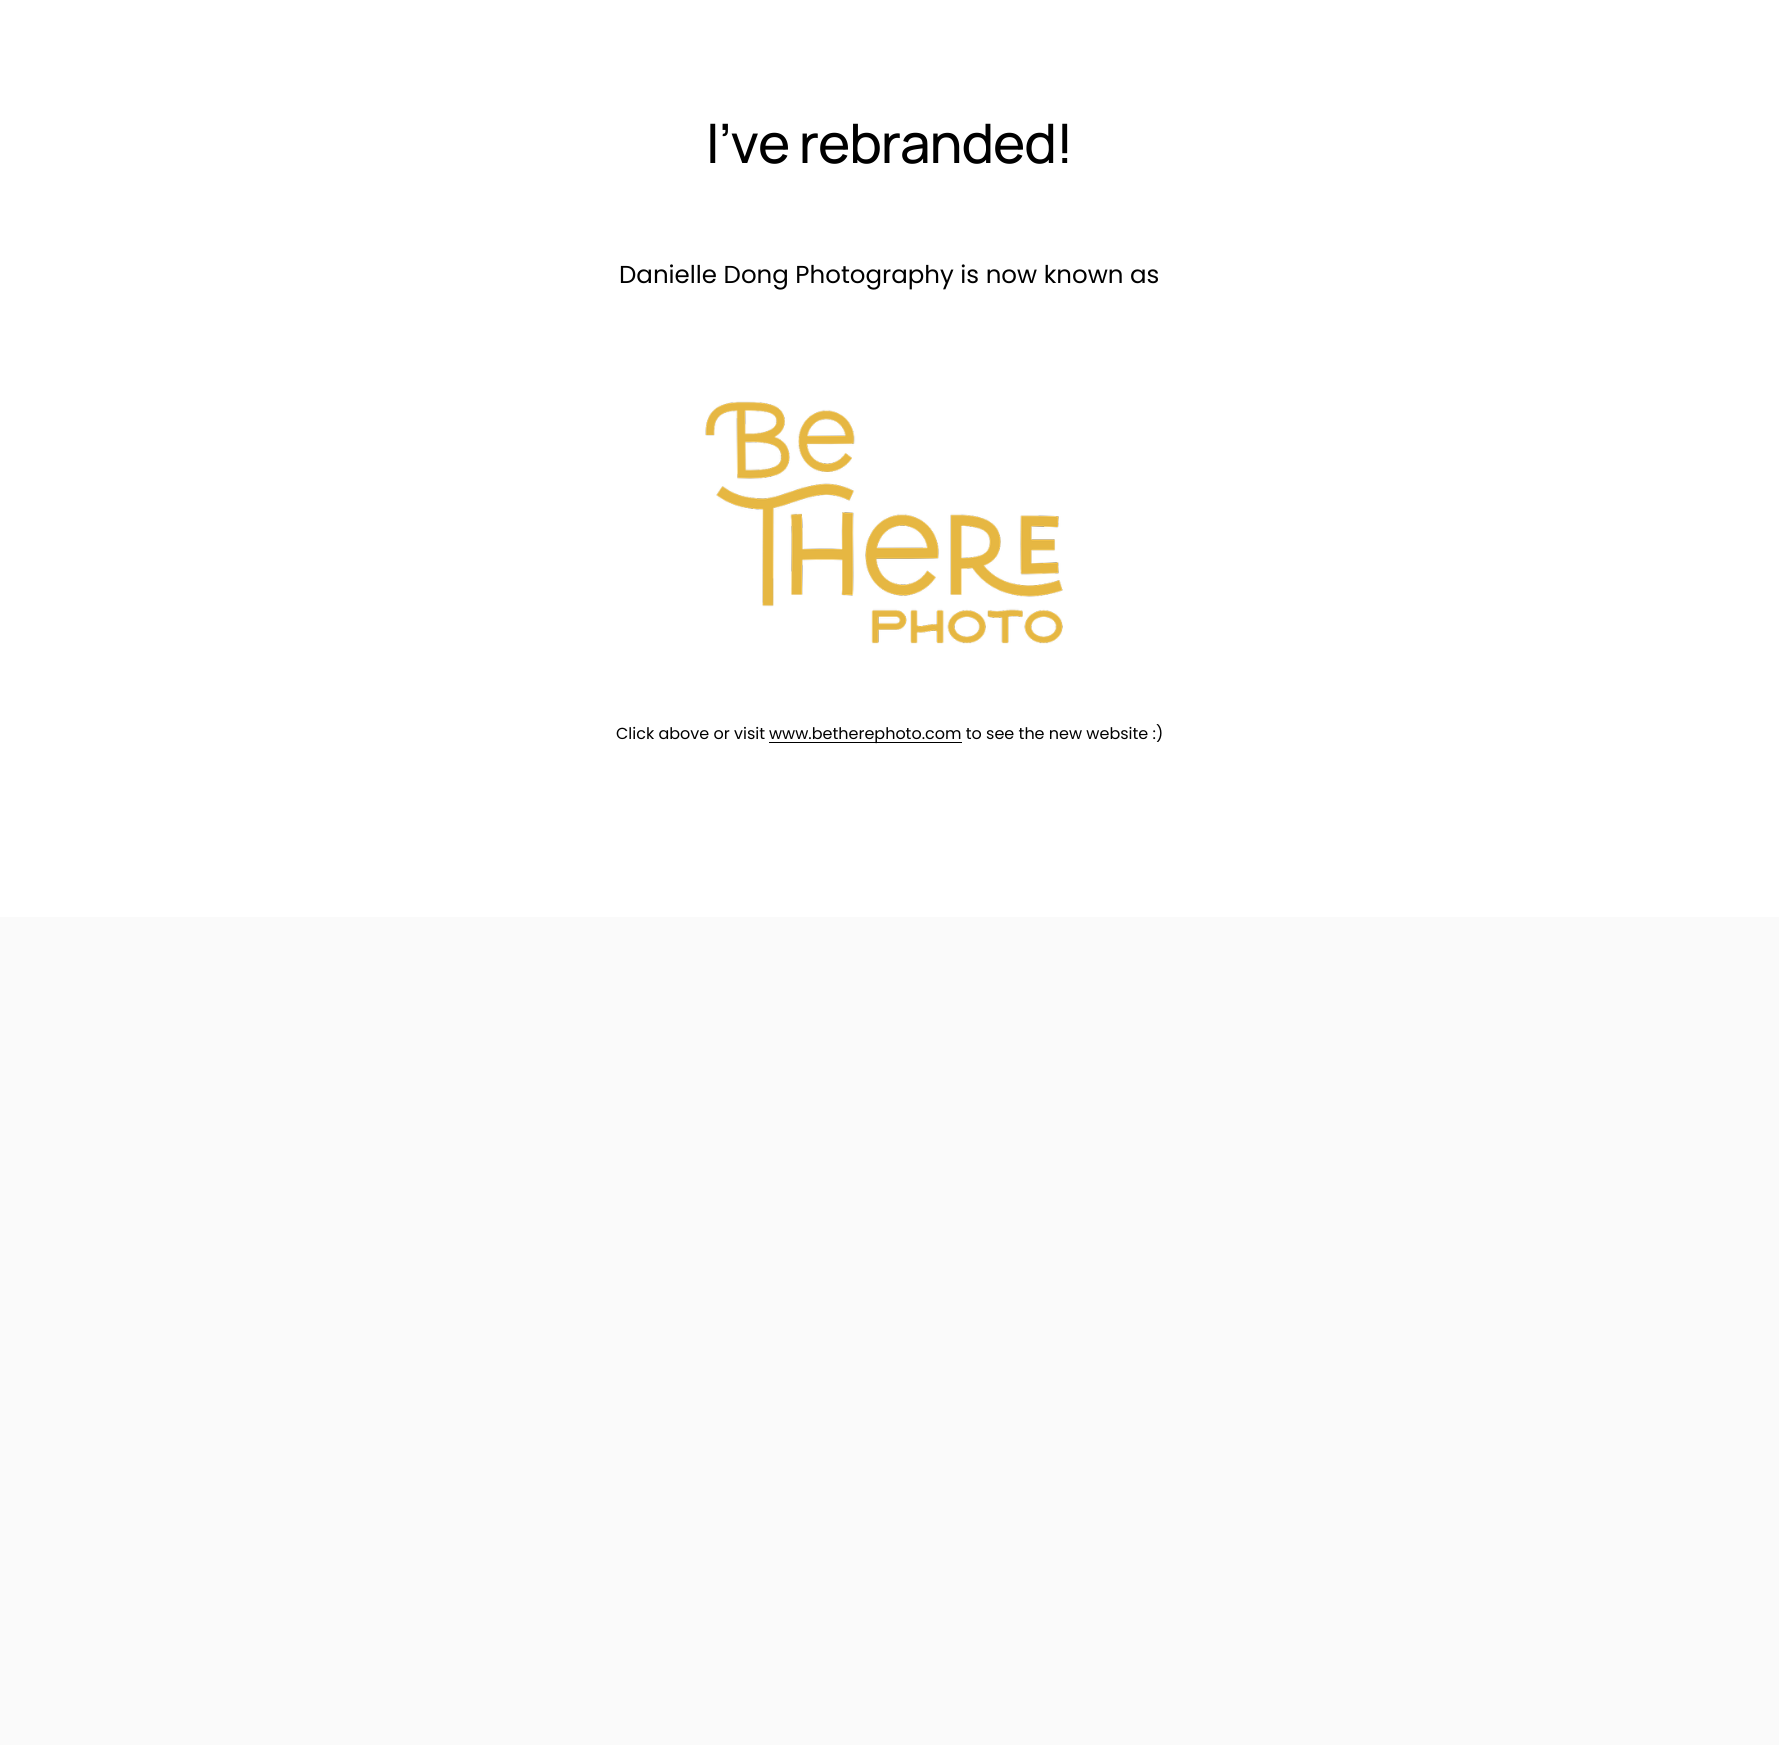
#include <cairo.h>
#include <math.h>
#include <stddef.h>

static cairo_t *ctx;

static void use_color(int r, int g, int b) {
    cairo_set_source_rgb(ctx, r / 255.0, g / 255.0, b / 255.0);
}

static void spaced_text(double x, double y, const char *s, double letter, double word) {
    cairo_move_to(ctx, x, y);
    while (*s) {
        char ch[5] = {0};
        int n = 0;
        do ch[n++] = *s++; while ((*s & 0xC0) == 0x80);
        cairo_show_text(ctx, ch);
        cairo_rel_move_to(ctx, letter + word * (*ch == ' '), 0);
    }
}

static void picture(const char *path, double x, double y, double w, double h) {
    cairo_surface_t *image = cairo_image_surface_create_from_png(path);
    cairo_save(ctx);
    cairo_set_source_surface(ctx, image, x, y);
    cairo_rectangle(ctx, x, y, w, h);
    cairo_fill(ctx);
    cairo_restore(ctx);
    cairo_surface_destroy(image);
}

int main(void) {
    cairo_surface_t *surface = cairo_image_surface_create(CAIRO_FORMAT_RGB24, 1779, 1745);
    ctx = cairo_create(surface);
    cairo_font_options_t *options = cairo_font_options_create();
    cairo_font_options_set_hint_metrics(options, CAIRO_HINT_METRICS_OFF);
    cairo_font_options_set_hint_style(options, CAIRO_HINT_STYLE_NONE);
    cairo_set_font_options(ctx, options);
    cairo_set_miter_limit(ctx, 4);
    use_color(250, 250, 250);
    cairo_paint(ctx);
    use_color(255, 255, 255);
    cairo_rectangle(ctx, 0, 0, 1779, 917);
    cairo_fill(ctx);
    cairo_select_font_face(ctx, "Manrope Medium", CAIRO_FONT_SLANT_NORMAL, CAIRO_FONT_WEIGHT_NORMAL);
    cairo_set_font_size(ctx, 54.5);
    use_color(0, 0, 0);
    spaced_text(706, 163, "I’ve rebranded!", -1.1, 0);
    cairo_select_font_face(ctx, "Poppins", CAIRO_FONT_SLANT_NORMAL, CAIRO_FONT_WEIGHT_NORMAL);
    cairo_set_font_size(ctx, 24.5);
    cairo_move_to(ctx, 619, 283);
    cairo_show_text(ctx, "Danielle Dong Photography is now known as");
    picture("img1.png", 705, 401, 358, 243);
    cairo_set_font_size(ctx, 16);
    cairo_move_to(ctx, 616, 739);
    cairo_show_text(ctx, "Click above or visit");
    cairo_rectangle(ctx, 769, 742, 193, 1);
    cairo_fill(ctx);
    cairo_move_to(ctx, 769, 739);
    cairo_show_text(ctx, "www.betherephoto.com to see the new website :)");
    cairo_surface_write_to_png(surface, "result.png");
    cairo_font_options_destroy(options);
    cairo_destroy(ctx);
    cairo_surface_destroy(surface);
    return 0;
}
